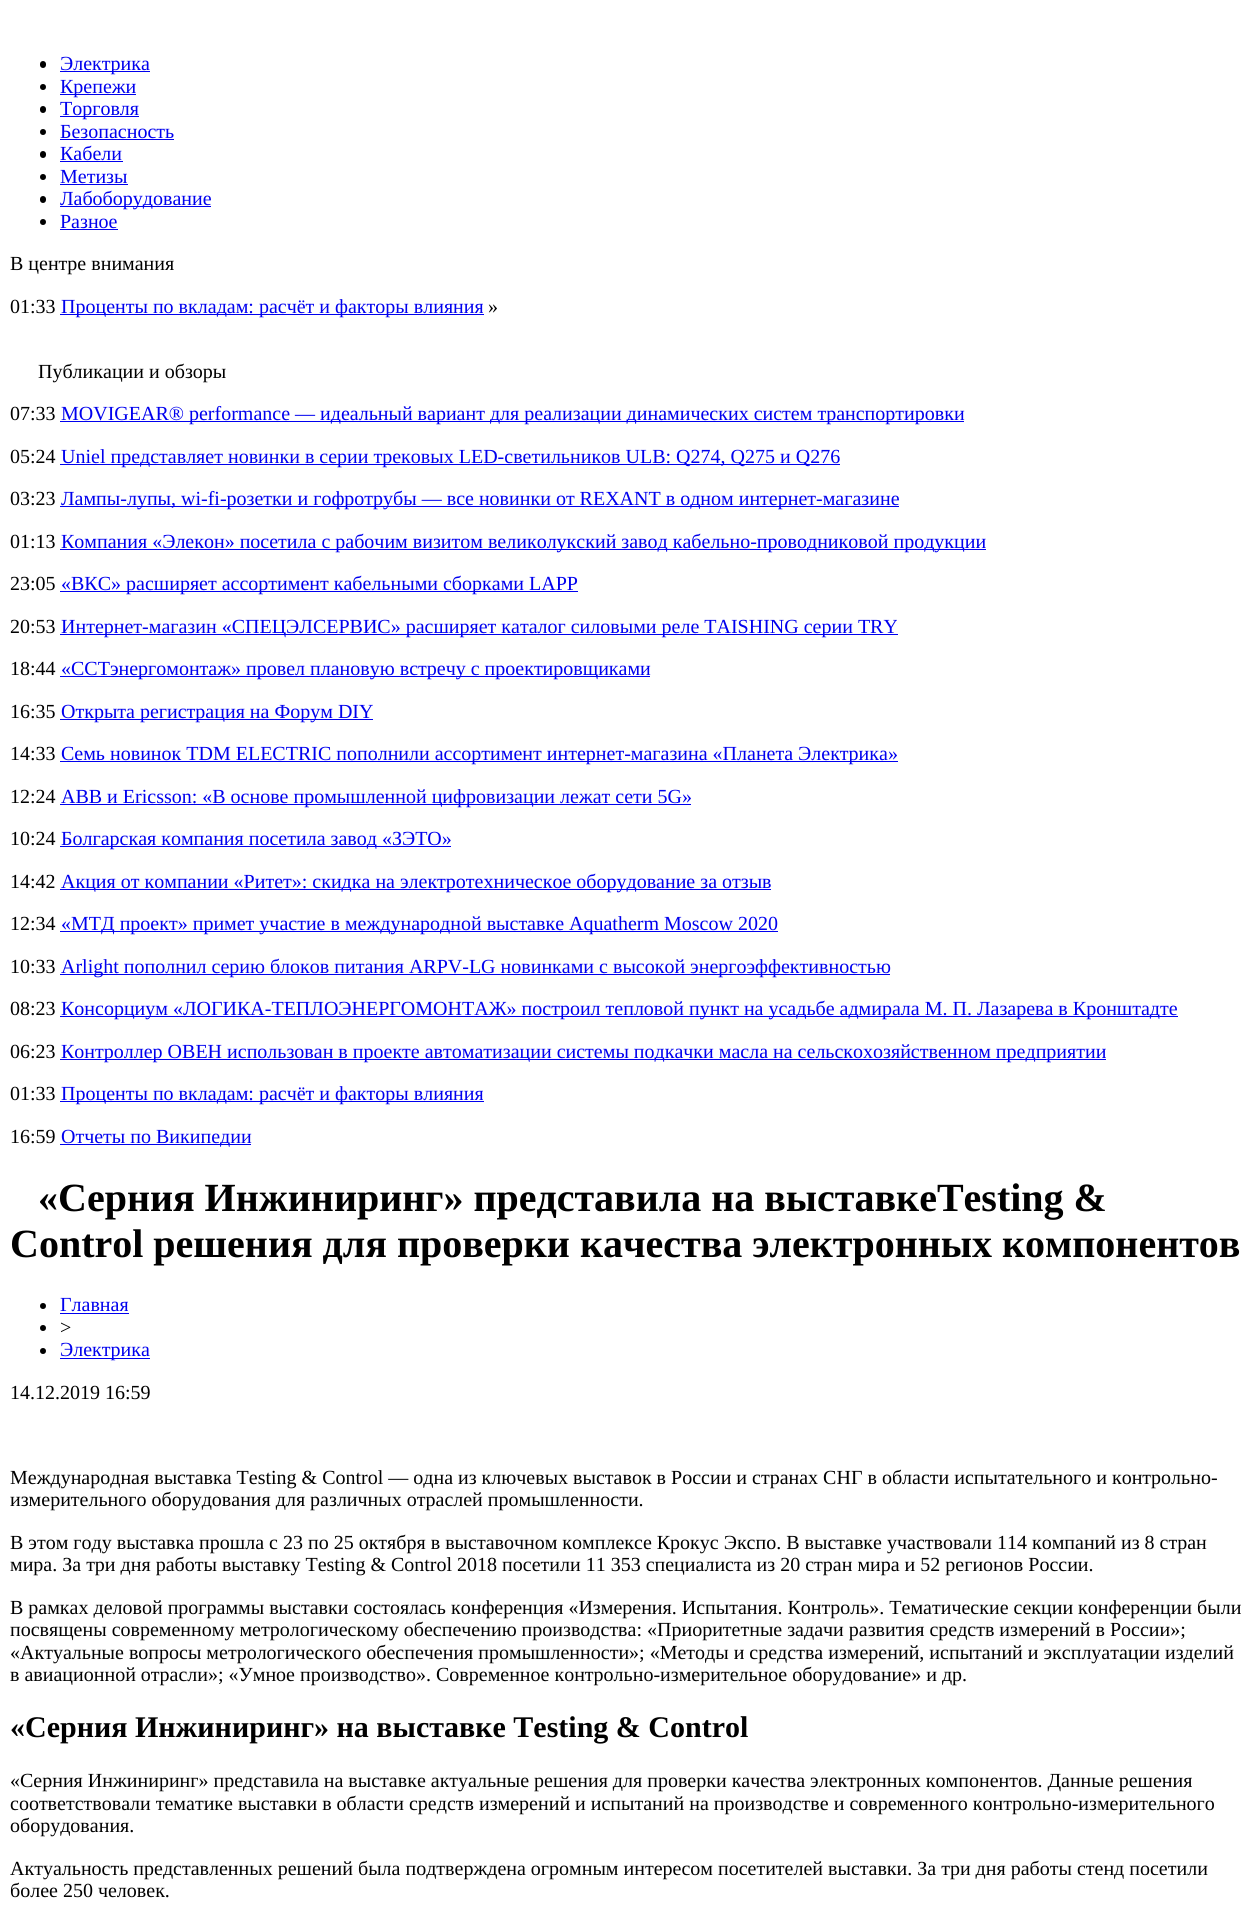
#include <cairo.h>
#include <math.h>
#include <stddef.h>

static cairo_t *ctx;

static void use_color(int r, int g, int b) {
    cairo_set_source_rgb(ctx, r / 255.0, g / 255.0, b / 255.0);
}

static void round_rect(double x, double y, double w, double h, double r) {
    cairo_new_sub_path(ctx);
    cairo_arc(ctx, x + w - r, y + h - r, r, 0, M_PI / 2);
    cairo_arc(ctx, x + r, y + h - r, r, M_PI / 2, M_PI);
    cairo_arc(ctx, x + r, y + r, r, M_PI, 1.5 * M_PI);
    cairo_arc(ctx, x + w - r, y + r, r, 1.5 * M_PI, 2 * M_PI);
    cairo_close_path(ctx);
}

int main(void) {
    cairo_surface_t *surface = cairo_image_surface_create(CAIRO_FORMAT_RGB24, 1255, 1908);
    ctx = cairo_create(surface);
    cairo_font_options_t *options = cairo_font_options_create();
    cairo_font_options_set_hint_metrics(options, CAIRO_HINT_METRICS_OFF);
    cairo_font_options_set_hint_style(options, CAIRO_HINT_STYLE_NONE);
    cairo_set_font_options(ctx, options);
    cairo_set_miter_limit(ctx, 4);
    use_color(255, 255, 255);
    cairo_paint(ctx);
    use_color(0, 0, 0);
    round_rect(40, 61, 6, 7, 3);
    cairo_fill(ctx);
    use_color(0, 0, 238);
    cairo_rectangle(ctx, 60, 71, 90, 1);
    cairo_fill(ctx);
    cairo_select_font_face(ctx, "Liberation Serif", CAIRO_FONT_SLANT_NORMAL, CAIRO_FONT_WEIGHT_NORMAL);
    cairo_set_font_size(ctx, 20);
    cairo_move_to(ctx, 60, 70);
    cairo_show_text(ctx, "Электрика");
    use_color(0, 0, 0);
    cairo_new_path(ctx);
    cairo_arc(ctx, 43, 87, 3, 0, 2 * M_PI);
    cairo_fill(ctx);
    use_color(0, 0, 238);
    cairo_rectangle(ctx, 60, 94, 76, 1);
    cairo_fill(ctx);
    cairo_move_to(ctx, 60, 93);
    cairo_show_text(ctx, "Крепежи");
    use_color(0, 0, 0);
    round_rect(40, 106, 6, 7, 3);
    cairo_fill(ctx);
    use_color(0, 0, 238);
    cairo_rectangle(ctx, 60, 116, 79, 1);
    cairo_fill(ctx);
    cairo_move_to(ctx, 60, 115);
    cairo_show_text(ctx, "Торговля");
    use_color(0, 0, 0);
    cairo_new_path(ctx);
    cairo_arc(ctx, 43, 132, 3, 0, 2 * M_PI);
    cairo_fill(ctx);
    use_color(0, 0, 238);
    cairo_move_to(ctx, 60, 138);
    cairo_show_text(ctx, "Безопасность");
    cairo_rectangle(ctx, 60, 139, 114, 1);
    cairo_fill(ctx);
    use_color(0, 0, 0);
    round_rect(40, 151, 6, 7, 3);
    cairo_fill(ctx);
    use_color(0, 0, 238);
    cairo_move_to(ctx, 60, 160);
    cairo_show_text(ctx, "Кабели");
    cairo_rectangle(ctx, 60, 161, 63, 1);
    cairo_fill(ctx);
    use_color(0, 0, 0);
    cairo_arc(ctx, 43, 177, 3, 0, 2 * M_PI);
    cairo_fill(ctx);
    use_color(0, 0, 238);
    cairo_move_to(ctx, 60, 183);
    cairo_show_text(ctx, "Метизы");
    cairo_rectangle(ctx, 60, 184, 68, 1);
    cairo_fill(ctx);
    use_color(0, 0, 0);
    round_rect(40, 196, 6, 7, 3);
    cairo_fill(ctx);
    use_color(0, 0, 238);
    cairo_rectangle(ctx, 60, 206, 151, 1);
    cairo_fill(ctx);
    cairo_move_to(ctx, 60, 205);
    cairo_show_text(ctx, "Лабоборудование");
    use_color(0, 0, 0);
    cairo_new_path(ctx);
    cairo_arc(ctx, 43, 222, 3, 0, 2 * M_PI);
    cairo_fill(ctx);
    use_color(0, 0, 238);
    cairo_move_to(ctx, 60, 228);
    cairo_show_text(ctx, "Разное");
    cairo_rectangle(ctx, 60, 229, 58, 1);
    cairo_fill(ctx);
    use_color(0, 0, 0);
    cairo_move_to(ctx, 10, 270);
    cairo_show_text(ctx, "В центре внимания");
    cairo_move_to(ctx, 10, 313);
    cairo_show_text(ctx, "01:33");
    use_color(0, 0, 238);
    cairo_rectangle(ctx, 60, 314, 424, 1);
    cairo_fill(ctx);
    cairo_move_to(ctx, 61, 313);
    cairo_show_text(ctx, "Проценты по вкладам: расчёт и факторы влияния");
    use_color(0, 0, 0);
    cairo_move_to(ctx, 488, 313);
    cairo_show_text(ctx, "»");
    cairo_move_to(ctx, 38, 378);
    cairo_show_text(ctx, "Публикации и обзоры");
    cairo_move_to(ctx, 10, 420);
    cairo_show_text(ctx, "07:33");
    use_color(0, 0, 238);
    cairo_rectangle(ctx, 60, 421, 904, 1);
    cairo_fill(ctx);
    cairo_move_to(ctx, 61, 420);
    cairo_show_text(ctx, "MOVIGEAR® performance — идеальный вариант для реализации динамических систем транспортировки");
    use_color(0, 0, 0);
    cairo_move_to(ctx, 10, 463);
    cairo_show_text(ctx, "05:24");
    use_color(0, 0, 238);
    cairo_rectangle(ctx, 60, 464, 780, 1);
    cairo_fill(ctx);
    cairo_move_to(ctx, 61, 463);
    cairo_show_text(ctx, "Uniel представляет новинки в серии трековых LED-светильников ULB: Q274, Q275 и Q276");
    use_color(0, 0, 0);
    cairo_move_to(ctx, 10, 505);
    cairo_show_text(ctx, "03:23");
    use_color(0, 0, 238);
    cairo_rectangle(ctx, 60, 506, 839, 1);
    cairo_fill(ctx);
    cairo_move_to(ctx, 61, 505);
    cairo_show_text(ctx, "Лампы-лупы, wi-fi-розетки и гофротрубы — все новинки от REXANT в одном интернет-магазине");
    use_color(0, 0, 0);
    cairo_move_to(ctx, 10, 548);
    cairo_show_text(ctx, "01:13");
    use_color(0, 0, 238);
    cairo_rectangle(ctx, 60, 549, 926, 1);
    cairo_fill(ctx);
    cairo_move_to(ctx, 61, 548);
    cairo_show_text(ctx, "Компания «Элекон» посетила с рабочим визитом великолукский завод кабельно-проводниковой продукции");
    use_color(0, 0, 0);
    cairo_move_to(ctx, 10, 590);
    cairo_show_text(ctx, "23:05");
    use_color(0, 0, 238);
    cairo_rectangle(ctx, 60, 591, 518, 1);
    cairo_fill(ctx);
    cairo_move_to(ctx, 61, 590);
    cairo_show_text(ctx, "«ВКС» расширяет ассортимент кабельными сборками LAPP");
    use_color(0, 0, 0);
    cairo_move_to(ctx, 10, 633);
    cairo_show_text(ctx, "20:53");
    use_color(0, 0, 238);
    cairo_rectangle(ctx, 60, 634, 838, 1);
    cairo_fill(ctx);
    cairo_move_to(ctx, 61, 633);
    cairo_show_text(ctx, "Интернет-магазин «СПЕЦЭЛСЕРВИС» расширяет каталог силовыми реле TAISHING серии TRY");
    use_color(0, 0, 0);
    cairo_move_to(ctx, 10, 675);
    cairo_show_text(ctx, "18:44");
    use_color(0, 0, 238);
    cairo_rectangle(ctx, 60, 676, 590, 1);
    cairo_fill(ctx);
    cairo_move_to(ctx, 61, 675);
    cairo_show_text(ctx, "«ССТэнергомонтаж» провел плановую встречу с проектировщиками");
    use_color(0, 0, 0);
    cairo_move_to(ctx, 10, 718);
    cairo_show_text(ctx, "16:35");
    use_color(0, 0, 238);
    cairo_rectangle(ctx, 60, 719, 313, 1);
    cairo_fill(ctx);
    cairo_move_to(ctx, 61, 718);
    cairo_show_text(ctx, "Открыта регистрация на Форум DIY");
    use_color(0, 0, 0);
    cairo_move_to(ctx, 10, 760);
    cairo_show_text(ctx, "14:33");
    use_color(0, 0, 238);
    cairo_rectangle(ctx, 60, 761, 838, 1);
    cairo_fill(ctx);
    cairo_move_to(ctx, 61, 760);
    cairo_show_text(ctx, "Семь новинок TDM ELECTRIC пополнили ассортимент интернет-магазина «Планета Электрика»");
    use_color(0, 0, 0);
    cairo_move_to(ctx, 10, 803);
    cairo_show_text(ctx, "12:24");
    use_color(0, 0, 238);
    cairo_rectangle(ctx, 60, 804, 631, 1);
    cairo_fill(ctx);
    cairo_move_to(ctx, 61, 803);
    cairo_show_text(ctx, "ABB и Ericsson: «В основе промышленной цифровизации лежат сети 5G»");
    use_color(0, 0, 0);
    cairo_move_to(ctx, 10, 845);
    cairo_show_text(ctx, "10:24");
    use_color(0, 0, 238);
    cairo_rectangle(ctx, 60, 846, 391, 1);
    cairo_fill(ctx);
    cairo_move_to(ctx, 61, 845);
    cairo_show_text(ctx, "Болгарская компания посетила завод «ЗЭТО»");
    use_color(0, 0, 0);
    cairo_move_to(ctx, 10, 888);
    cairo_show_text(ctx, "14:42");
    use_color(0, 0, 238);
    cairo_rectangle(ctx, 60, 889, 711, 1);
    cairo_fill(ctx);
    cairo_move_to(ctx, 61, 888);
    cairo_show_text(ctx, "Акция от компании «Ритет»: скидка на электротехническое оборудование за отзыв");
    use_color(0, 0, 0);
    cairo_move_to(ctx, 10, 930);
    cairo_show_text(ctx, "12:34");
    use_color(0, 0, 238);
    cairo_rectangle(ctx, 60, 931, 718, 1);
    cairo_fill(ctx);
    cairo_move_to(ctx, 61, 930);
    cairo_show_text(ctx, "«МТД проект» примет участие в международной выставке Aquatherm Moscow 2020");
    use_color(0, 0, 0);
    cairo_move_to(ctx, 10, 973);
    cairo_show_text(ctx, "10:33");
    use_color(0, 0, 238);
    cairo_rectangle(ctx, 60, 974, 830, 1);
    cairo_fill(ctx);
    cairo_move_to(ctx, 61, 973);
    cairo_show_text(ctx, "Arlight пополнил серию блоков питания ARPV-LG новинками с высокой энергоэффективностью");
    use_color(0, 0, 0);
    cairo_move_to(ctx, 10, 1015);
    cairo_show_text(ctx, "08:23");
    use_color(0, 0, 238);
    cairo_rectangle(ctx, 60, 1016, 1118, 1);
    cairo_fill(ctx);
    cairo_move_to(ctx, 61, 1015);
    cairo_show_text(ctx, "Консорциум «ЛОГИКА-ТЕПЛОЭНЕРГОМОНТАЖ» построил тепловой пункт на усадьбе адмирала М. П. Лазарева в Кронштадте");
    use_color(0, 0, 0);
    cairo_move_to(ctx, 10, 1058);
    cairo_show_text(ctx, "06:23");
    use_color(0, 0, 238);
    cairo_rectangle(ctx, 60, 1059, 1046, 1);
    cairo_fill(ctx);
    cairo_move_to(ctx, 61, 1058);
    cairo_show_text(ctx, "Контроллер ОВЕН использован в проекте автоматизации системы подкачки масла на сельскохозяйственном предприятии");
    use_color(0, 0, 0);
    cairo_move_to(ctx, 10, 1100);
    cairo_show_text(ctx, "01:33");
    use_color(0, 0, 238);
    cairo_rectangle(ctx, 60, 1101, 424, 1);
    cairo_fill(ctx);
    cairo_move_to(ctx, 61, 1100);
    cairo_show_text(ctx, "Проценты по вкладам: расчёт и факторы влияния");
    use_color(0, 0, 0);
    cairo_move_to(ctx, 10, 1143);
    cairo_show_text(ctx, "16:59");
    use_color(0, 0, 238);
    cairo_rectangle(ctx, 60, 1144, 191, 1);
    cairo_fill(ctx);
    cairo_move_to(ctx, 61, 1143);
    cairo_show_text(ctx, "Отчеты по Википедии");
    cairo_select_font_face(ctx, "Liberation Serif", CAIRO_FONT_SLANT_NORMAL, CAIRO_FONT_WEIGHT_BOLD);
    cairo_set_font_size(ctx, 40);
    use_color(0, 0, 0);
    cairo_move_to(ctx, 38, 1211);
    cairo_show_text(ctx, "«Серния Инжиниринг» представила на выставкеTesting &");
    cairo_move_to(ctx, 10, 1257);
    cairo_show_text(ctx, "Control решения для проверки качества электронных компонентов");
    cairo_new_path(ctx);
    cairo_arc(ctx, 43, 1306, 3, 0, 2 * M_PI);
    cairo_fill(ctx);
    cairo_select_font_face(ctx, "Liberation Serif", CAIRO_FONT_SLANT_NORMAL, CAIRO_FONT_WEIGHT_NORMAL);
    cairo_set_font_size(ctx, 20);
    use_color(0, 0, 238);
    cairo_move_to(ctx, 60, 1311);
    cairo_show_text(ctx, "Главная");
    cairo_rectangle(ctx, 60, 1313, 69, 1);
    cairo_fill(ctx);
    use_color(0, 0, 0);
    cairo_arc(ctx, 43, 1328, 3, 0, 2 * M_PI);
    cairo_fill(ctx);
    cairo_move_to(ctx, 60, 1334);
    cairo_show_text(ctx, ">");
    cairo_new_path(ctx);
    cairo_arc(ctx, 43, 1351, 3, 0, 2 * M_PI);
    cairo_fill(ctx);
    use_color(0, 0, 238);
    cairo_rectangle(ctx, 60, 1358, 90, 1);
    cairo_fill(ctx);
    cairo_move_to(ctx, 60, 1356);
    cairo_show_text(ctx, "Электрика");
    use_color(0, 0, 0);
    cairo_move_to(ctx, 10, 1399);
    cairo_show_text(ctx, "14.12.2019 16:59");
    cairo_move_to(ctx, 10, 1484);
    cairo_show_text(ctx, "Международная выставка Testing & Control — одна из ключевых выставок в России и странах СНГ в области испытательного и контрольно-");
    cairo_move_to(ctx, 10, 1506);
    cairo_show_text(ctx, "измерительного оборудования для различных отраслей промышленности.");
    cairo_move_to(ctx, 10, 1549);
    cairo_show_text(ctx, "В этом году выставка прошла с 23 по 25 октября в выставочном комплексе Крокус Экспо. В выставке участвовали 114 компаний из 8 стран");
    cairo_move_to(ctx, 10, 1571);
    cairo_show_text(ctx, "мира. За три дня работы выставку Testing & Control 2018 посетили 11 353 специалиста из 20 стран мира и 52 регионов России.");
    cairo_move_to(ctx, 10, 1614);
    cairo_show_text(ctx, "В рамках деловой программы выставки состоялась конференция «Измерения. Испытания. Контроль». Тематические секции конференции были");
    cairo_move_to(ctx, 10, 1636);
    cairo_show_text(ctx, "посвящены современному метрологическому обеспечению производства: «Приоритетные задачи развития средств измерений в России»;");
    cairo_move_to(ctx, 10, 1659);
    cairo_show_text(ctx, "«Актуальные вопросы метрологического обеспечения промышленности»; «Методы и средства измерений, испытаний и эксплуатации изделий");
    cairo_move_to(ctx, 10, 1681);
    cairo_show_text(ctx, "в авиационной отрасли»; «Умное производство». Современное контрольно-измерительное оборудование» и др.");
    cairo_select_font_face(ctx, "Liberation Serif", CAIRO_FONT_SLANT_NORMAL, CAIRO_FONT_WEIGHT_BOLD);
    cairo_set_font_size(ctx, 30);
    cairo_move_to(ctx, 10, 1737);
    cairo_show_text(ctx, "«Серния Инжиниринг» на выставке Testing & Control");
    cairo_select_font_face(ctx, "Liberation Serif", CAIRO_FONT_SLANT_NORMAL, CAIRO_FONT_WEIGHT_NORMAL);
    cairo_set_font_size(ctx, 20);
    cairo_move_to(ctx, 10, 1787);
    cairo_show_text(ctx, "«Серния Инжиниринг» представила на выставке актуальные решения для проверки качества электронных компонентов. Данные решения");
    cairo_move_to(ctx, 10, 1810);
    cairo_show_text(ctx, "соответствовали тематике выставки в области средств измерений и испытаний на производстве и современного контрольно-измерительного");
    cairo_move_to(ctx, 10, 1832);
    cairo_show_text(ctx, "оборудования.");
    cairo_move_to(ctx, 10, 1875);
    cairo_show_text(ctx, "Актуальность представленных решений была подтверждена огромным интересом посетителей выставки. За три дня работы стенд посетили");
    cairo_move_to(ctx, 10, 1897);
    cairo_show_text(ctx, "более 250 человек.");
    cairo_surface_write_to_png(surface, "result.png");
    cairo_font_options_destroy(options);
    cairo_destroy(ctx);
    cairo_surface_destroy(surface);
    return 0;
}
